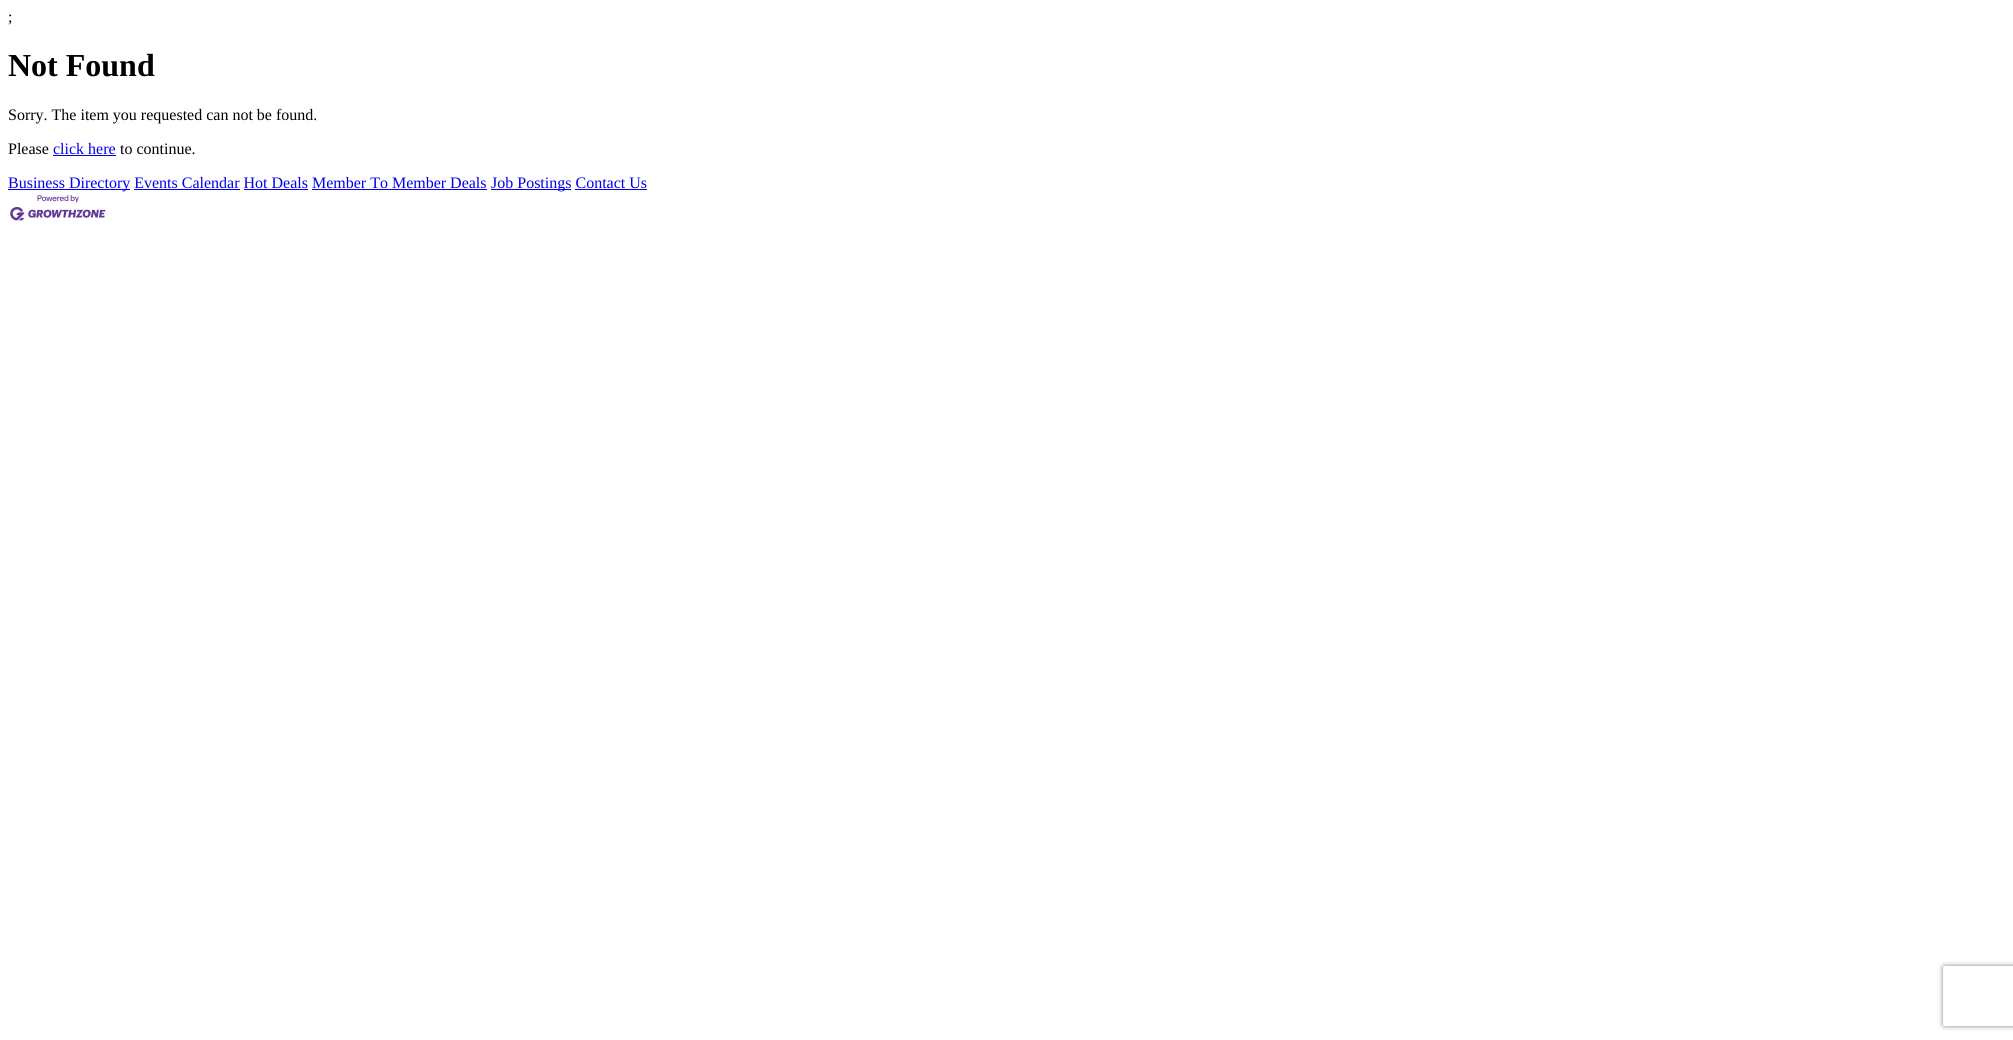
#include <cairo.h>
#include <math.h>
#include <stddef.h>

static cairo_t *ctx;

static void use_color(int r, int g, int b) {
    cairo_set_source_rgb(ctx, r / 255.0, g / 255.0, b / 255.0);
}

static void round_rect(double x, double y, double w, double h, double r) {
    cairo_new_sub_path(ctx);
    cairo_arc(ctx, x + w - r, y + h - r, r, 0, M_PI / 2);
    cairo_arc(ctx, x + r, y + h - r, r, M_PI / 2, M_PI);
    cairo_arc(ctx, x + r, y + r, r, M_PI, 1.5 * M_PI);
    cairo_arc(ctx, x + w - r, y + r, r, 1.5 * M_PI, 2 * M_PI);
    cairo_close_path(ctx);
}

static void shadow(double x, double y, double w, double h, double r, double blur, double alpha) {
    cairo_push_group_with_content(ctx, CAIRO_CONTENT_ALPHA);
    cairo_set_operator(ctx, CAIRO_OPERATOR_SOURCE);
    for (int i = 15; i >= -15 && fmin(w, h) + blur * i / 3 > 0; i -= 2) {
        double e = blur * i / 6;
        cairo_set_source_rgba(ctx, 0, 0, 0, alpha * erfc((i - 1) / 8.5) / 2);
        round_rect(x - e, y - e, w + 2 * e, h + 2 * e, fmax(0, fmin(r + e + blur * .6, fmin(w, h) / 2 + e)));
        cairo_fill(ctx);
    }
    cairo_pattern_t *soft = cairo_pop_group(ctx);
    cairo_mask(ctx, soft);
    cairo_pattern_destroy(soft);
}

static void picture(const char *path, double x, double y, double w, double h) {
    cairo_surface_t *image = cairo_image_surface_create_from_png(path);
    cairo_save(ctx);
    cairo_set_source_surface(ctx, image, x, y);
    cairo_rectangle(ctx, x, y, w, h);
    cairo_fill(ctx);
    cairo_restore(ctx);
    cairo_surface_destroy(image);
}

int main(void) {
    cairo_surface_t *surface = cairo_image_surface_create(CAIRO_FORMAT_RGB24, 2013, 1040);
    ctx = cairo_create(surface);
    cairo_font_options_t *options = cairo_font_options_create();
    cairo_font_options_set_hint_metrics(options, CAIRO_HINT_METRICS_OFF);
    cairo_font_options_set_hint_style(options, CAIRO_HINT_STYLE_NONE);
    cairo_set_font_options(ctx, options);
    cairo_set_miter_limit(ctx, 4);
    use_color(255, 255, 255);
    cairo_paint(ctx);
    cairo_select_font_face(ctx, "Liberation Serif", CAIRO_FONT_SLANT_NORMAL, CAIRO_FONT_WEIGHT_NORMAL);
    cairo_set_font_size(ctx, 16);
    use_color(0, 0, 0);
    cairo_move_to(ctx, 8, 22);
    cairo_show_text(ctx, ";");
    cairo_select_font_face(ctx, "Liberation Serif", CAIRO_FONT_SLANT_NORMAL, CAIRO_FONT_WEIGHT_BOLD);
    cairo_set_font_size(ctx, 32);
    cairo_move_to(ctx, 8, 76);
    cairo_show_text(ctx, "Not Found");
    cairo_select_font_face(ctx, "Liberation Serif", CAIRO_FONT_SLANT_NORMAL, CAIRO_FONT_WEIGHT_NORMAL);
    cairo_set_font_size(ctx, 16);
    cairo_move_to(ctx, 8, 120);
    cairo_show_text(ctx, "Sorry. The item you requested can not be found.");
    cairo_move_to(ctx, 8, 154);
    cairo_show_text(ctx, "Please");
    use_color(0, 0, 238);
    cairo_move_to(ctx, 53, 154);
    cairo_show_text(ctx, "click here");
    cairo_rectangle(ctx, 53, 155, 63, 1);
    cairo_fill(ctx);
    use_color(0, 0, 0);
    cairo_move_to(ctx, 120, 154);
    cairo_show_text(ctx, "to continue.");
    use_color(0, 0, 238);
    cairo_rectangle(ctx, 8, 189, 122, 1);
    cairo_fill(ctx);
    cairo_move_to(ctx, 8, 188);
    cairo_show_text(ctx, "Business Directory Events Calendar Hot Deals Member To Member Deals");
    cairo_rectangle(ctx, 491, 189, 80, 1);
    cairo_fill(ctx);
    cairo_move_to(ctx, 491, 188);
    cairo_show_text(ctx, "Job Postings Contact Us");
    cairo_rectangle(ctx, 134, 189, 106, 1);
    cairo_fill(ctx);
    cairo_rectangle(ctx, 244, 189, 64, 1);
    cairo_fill(ctx);
    cairo_rectangle(ctx, 312, 189, 175, 1);
    cairo_fill(ctx);
    cairo_rectangle(ctx, 575, 189, 72, 1);
    cairo_fill(ctx);
    picture("img1.png", 10, 195, 96, 26);
    cairo_save(ctx);
    cairo_set_fill_rule(ctx, CAIRO_FILL_RULE_EVEN_ODD);
    cairo_new_path(ctx);
    cairo_move_to(ctx, 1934, 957);
    cairo_line_to(ctx, 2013, 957);
    cairo_line_to(ctx, 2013, 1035);
    cairo_line_to(ctx, 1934, 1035);
    cairo_close_path(ctx);
    cairo_move_to(ctx, 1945, 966);
    cairo_line_to(ctx, 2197, 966);
    cairo_curve_to(ctx, 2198, 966, 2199, 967, 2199, 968);
    cairo_line_to(ctx, 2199, 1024);
    cairo_curve_to(ctx, 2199, 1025, 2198, 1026, 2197, 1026);
    cairo_line_to(ctx, 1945, 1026);
    cairo_curve_to(ctx, 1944, 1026, 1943, 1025, 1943, 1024);
    cairo_line_to(ctx, 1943, 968);
    cairo_curve_to(ctx, 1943, 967, 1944, 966, 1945, 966);
    cairo_close_path(ctx);
    cairo_clip(ctx);
    use_color(128, 128, 128);
    shadow(1943, 966, 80, 60, 2, 2.5, 1);
    cairo_restore(ctx);
    cairo_surface_write_to_png(surface, "result.png");
    cairo_font_options_destroy(options);
    cairo_destroy(ctx);
    cairo_surface_destroy(surface);
    return 0;
}
